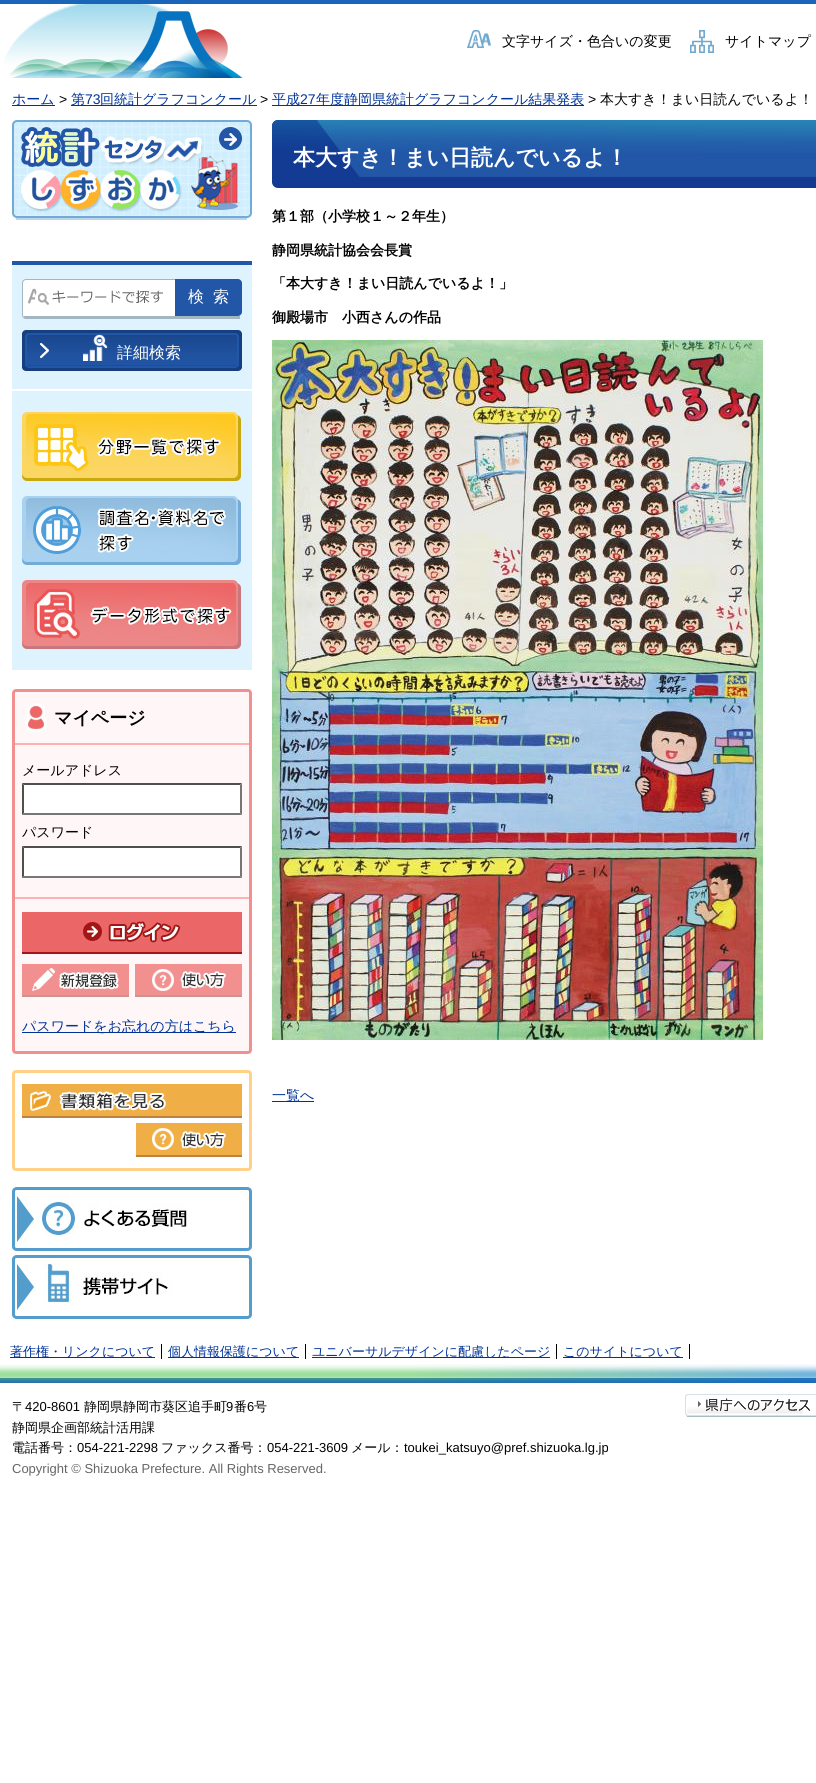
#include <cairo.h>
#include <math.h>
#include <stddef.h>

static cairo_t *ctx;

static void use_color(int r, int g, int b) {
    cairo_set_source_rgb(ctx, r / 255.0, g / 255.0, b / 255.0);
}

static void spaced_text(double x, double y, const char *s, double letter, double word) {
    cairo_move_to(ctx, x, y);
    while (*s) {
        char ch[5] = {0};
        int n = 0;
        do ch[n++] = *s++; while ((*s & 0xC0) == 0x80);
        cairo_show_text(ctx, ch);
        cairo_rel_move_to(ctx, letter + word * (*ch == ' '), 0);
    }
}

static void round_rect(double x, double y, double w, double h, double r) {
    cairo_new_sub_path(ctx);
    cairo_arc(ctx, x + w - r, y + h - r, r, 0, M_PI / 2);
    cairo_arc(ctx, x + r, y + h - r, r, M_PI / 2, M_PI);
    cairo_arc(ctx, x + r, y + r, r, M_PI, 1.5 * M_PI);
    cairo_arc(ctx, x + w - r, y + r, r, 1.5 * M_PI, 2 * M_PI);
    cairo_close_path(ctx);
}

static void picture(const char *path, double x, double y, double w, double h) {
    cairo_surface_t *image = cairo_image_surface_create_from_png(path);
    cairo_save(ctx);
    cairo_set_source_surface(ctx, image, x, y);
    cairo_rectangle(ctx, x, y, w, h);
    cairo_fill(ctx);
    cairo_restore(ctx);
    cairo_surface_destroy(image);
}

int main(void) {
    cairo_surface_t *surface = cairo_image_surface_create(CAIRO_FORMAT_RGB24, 816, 1783);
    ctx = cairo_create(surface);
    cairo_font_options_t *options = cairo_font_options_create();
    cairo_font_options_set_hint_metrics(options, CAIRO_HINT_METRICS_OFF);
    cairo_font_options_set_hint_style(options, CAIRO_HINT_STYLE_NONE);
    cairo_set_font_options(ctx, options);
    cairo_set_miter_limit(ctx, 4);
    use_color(255, 255, 255);
    cairo_paint(ctx);
    picture("img1.png", 4, 4, 239, 74);
    use_color(26, 100, 185);
    cairo_rectangle(ctx, 0, 0, 816, 4);
    cairo_fill(ctx);
    picture("img2.png", 467, 30, 24, 18);
    cairo_select_font_face(ctx, "WenQuanYi Zen Hei Medium", CAIRO_FONT_SLANT_NORMAL, CAIRO_FONT_WEIGHT_NORMAL);
    cairo_set_font_size(ctx, 14);
    use_color(0, 0, 0);
    cairo_move_to(ctx, 502, 46);
    cairo_show_text(ctx, "文字サイズ・色合いの変更");
    picture("img3.png", 690, 30, 24, 23);
    cairo_move_to(ctx, 725, 46);
    cairo_show_text(ctx, "サイトマップ");
    use_color(0, 51, 153);
    cairo_rectangle(ctx, 12, 105, 43, 1);
    cairo_fill(ctx);
    cairo_move_to(ctx, 12, 104);
    cairo_show_text(ctx, "ホーム");
    cairo_select_font_face(ctx, "Liberation Sans", CAIRO_FONT_SLANT_NORMAL, CAIRO_FONT_WEIGHT_NORMAL);
    use_color(0, 0, 0);
    cairo_move_to(ctx, 59, 104);
    cairo_show_text(ctx, ">");
    use_color(0, 51, 153);
    cairo_rectangle(ctx, 71, 105, 186, 1);
    cairo_fill(ctx);
    cairo_select_font_face(ctx, "WenQuanYi Zen Hei Medium", CAIRO_FONT_SLANT_NORMAL, CAIRO_FONT_WEIGHT_NORMAL);
    cairo_move_to(ctx, 71, 104);
    cairo_show_text(ctx, "第");
    cairo_select_font_face(ctx, "Liberation Sans", CAIRO_FONT_SLANT_NORMAL, CAIRO_FONT_WEIGHT_NORMAL);
    cairo_move_to(ctx, 85, 104);
    cairo_show_text(ctx, "73");
    cairo_select_font_face(ctx, "WenQuanYi Zen Hei Medium", CAIRO_FONT_SLANT_NORMAL, CAIRO_FONT_WEIGHT_NORMAL);
    cairo_move_to(ctx, 100, 104);
    cairo_show_text(ctx, "回統計グラフコンクール");
    cairo_select_font_face(ctx, "Liberation Sans", CAIRO_FONT_SLANT_NORMAL, CAIRO_FONT_WEIGHT_NORMAL);
    use_color(0, 0, 0);
    cairo_move_to(ctx, 260, 104);
    cairo_show_text(ctx, ">");
    use_color(0, 51, 153);
    cairo_rectangle(ctx, 272, 105, 312, 1);
    cairo_fill(ctx);
    cairo_select_font_face(ctx, "WenQuanYi Zen Hei Medium", CAIRO_FONT_SLANT_NORMAL, CAIRO_FONT_WEIGHT_NORMAL);
    cairo_move_to(ctx, 272, 104);
    cairo_show_text(ctx, "平成");
    cairo_select_font_face(ctx, "Liberation Sans", CAIRO_FONT_SLANT_NORMAL, CAIRO_FONT_WEIGHT_NORMAL);
    cairo_move_to(ctx, 300, 104);
    cairo_show_text(ctx, "27");
    cairo_select_font_face(ctx, "WenQuanYi Zen Hei Medium", CAIRO_FONT_SLANT_NORMAL, CAIRO_FONT_WEIGHT_NORMAL);
    cairo_move_to(ctx, 316, 104);
    cairo_show_text(ctx, "年度静岡県統計グラフコンクール結果発表");
    cairo_select_font_face(ctx, "Liberation Sans", CAIRO_FONT_SLANT_NORMAL, CAIRO_FONT_WEIGHT_NORMAL);
    use_color(0, 0, 0);
    cairo_move_to(ctx, 588, 104);
    cairo_show_text(ctx, ">");
    cairo_select_font_face(ctx, "WenQuanYi Zen Hei Medium", CAIRO_FONT_SLANT_NORMAL, CAIRO_FONT_WEIGHT_NORMAL);
    cairo_move_to(ctx, 600, 104);
    cairo_show_text(ctx, "本大すき！まい日読んでいるよ！");
    picture("img4.png", 12, 120, 240, 100);
    use_color(223, 243, 254);
    cairo_rectangle(ctx, 12, 265, 240, 405);
    cairo_fill(ctx);
    use_color(34, 86, 167);
    cairo_rectangle(ctx, 12, 261, 240, 4);
    cairo_fill(ctx);
    use_color(255, 255, 255);
    cairo_new_path(ctx);
    cairo_move_to(ctx, 26, 280);
    cairo_line_to(ctx, 176, 280);
    cairo_line_to(ctx, 176, 316);
    cairo_line_to(ctx, 26, 316);
    cairo_curve_to(ctx, 24, 316, 23, 316, 23, 315);
    cairo_line_to(ctx, 23, 283);
    cairo_curve_to(ctx, 23, 281, 24, 280, 26, 280);
    cairo_close_path(ctx);
    cairo_fill(ctx);
    picture("img5.png", 28, 288, 135, 17);
    cairo_new_path(ctx);
    cairo_move_to(ctx, 26, 279.5);
    cairo_line_to(ctx, 176.5, 279.5);
    cairo_line_to(ctx, 176.5, 318.5);
    cairo_line_to(ctx, 26, 318.5);
    cairo_curve_to(ctx, 24, 318.5, 22.5, 317, 22.5, 315);
    cairo_line_to(ctx, 22.5, 283);
    cairo_curve_to(ctx, 22.5, 281, 24, 279.5, 26, 279.5);
    cairo_close_path(ctx);
    use_color(162, 183, 196);
    cairo_set_line_width(ctx, 1);
    cairo_stroke(ctx);
    cairo_rectangle(ctx, 24, 316, 153, 2);
    cairo_fill(ctx);
    cairo_rectangle(ctx, 175, 316, 65, 3);
    cairo_fill(ctx);
    use_color(34, 86, 167);
    cairo_new_path(ctx);
    cairo_move_to(ctx, 175, 279);
    cairo_line_to(ctx, 238, 279);
    cairo_curve_to(ctx, 240, 279, 242, 281, 242, 283);
    cairo_line_to(ctx, 242, 312);
    cairo_curve_to(ctx, 242, 314, 240, 316, 238, 316);
    cairo_line_to(ctx, 175, 316);
    cairo_close_path(ctx);
    cairo_fill(ctx);
    cairo_set_font_size(ctx, 16);
    use_color(255, 255, 255);
    spaced_text(188, 302, "検索", 9, 0);
    use_color(22, 63, 128);
    round_rect(22, 330, 220, 41, 4);
    cairo_fill(ctx);
    picture("img6.png", 25, 333, 214, 33);
    round_rect(26, 334, 212, 33, 3);
    use_color(34, 86, 167);
    cairo_set_line_width(ctx, 2);
    cairo_stroke(ctx);
    picture("img7.png", 40, 343, 9, 15);
    picture("img8.png", 83, 334, 25, 27);
    use_color(255, 255, 255);
    cairo_move_to(ctx, 117, 358);
    cairo_show_text(ctx, "詳細検索");
    cairo_rectangle(ctx, 12, 389, 240, 2);
    cairo_fill(ctx);
    picture("img9.png", 22, 412, 219, 69);
    picture("img10.png", 22, 496, 219, 69);
    picture("img11.png", 22, 580, 219, 69);
    use_color(255, 247, 247);
    round_rect(13.5, 690.5, 237, 362, 2.5);
    cairo_fill_preserve(ctx);
    use_color(242, 144, 144);
    cairo_set_line_width(ctx, 3);
    cairo_stroke(ctx);
    use_color(255, 178, 178);
    cairo_rectangle(ctx, 15, 743, 234, 2);
    cairo_fill(ctx);
    picture("img12.png", 25, 701, 23, 32);
    cairo_select_font_face(ctx, "WenQuanYi Zen Hei", CAIRO_FONT_SLANT_NORMAL, CAIRO_FONT_WEIGHT_BOLD);
    cairo_set_font_size(ctx, 18);
    use_color(0, 0, 0);
    cairo_move_to(ctx, 54, 724);
    cairo_show_text(ctx, "マイページ");
    use_color(255, 178, 178);
    cairo_rectangle(ctx, 15, 897, 234, 2);
    cairo_fill(ctx);
    cairo_select_font_face(ctx, "WenQuanYi Zen Hei Medium", CAIRO_FONT_SLANT_NORMAL, CAIRO_FONT_WEIGHT_NORMAL);
    cairo_set_font_size(ctx, 14);
    use_color(0, 0, 0);
    cairo_move_to(ctx, 22, 775);
    cairo_show_text(ctx, "メールアドレス");
    use_color(255, 255, 255);
    cairo_rectangle(ctx, 22, 783, 220, 32);
    cairo_fill(ctx);
    use_color(79, 79, 79);
    cairo_new_path(ctx);
    cairo_move_to(ctx, 22, 783);
    cairo_line_to(ctx, 242, 783);
    cairo_line_to(ctx, 240, 785);
    cairo_line_to(ctx, 24, 785);
    cairo_close_path(ctx);
    cairo_fill(ctx);
    use_color(118, 118, 118);
    cairo_new_path(ctx);
    cairo_move_to(ctx, 242, 783);
    cairo_line_to(ctx, 242, 815);
    cairo_line_to(ctx, 240, 813);
    cairo_line_to(ctx, 240, 785);
    cairo_close_path(ctx);
    cairo_fill(ctx);
    cairo_new_path(ctx);
    cairo_move_to(ctx, 242, 815);
    cairo_line_to(ctx, 22, 815);
    cairo_line_to(ctx, 24, 813);
    cairo_line_to(ctx, 240, 813);
    cairo_close_path(ctx);
    cairo_fill(ctx);
    use_color(79, 79, 79);
    cairo_new_path(ctx);
    cairo_move_to(ctx, 22, 815);
    cairo_line_to(ctx, 22, 783);
    cairo_line_to(ctx, 24, 785);
    cairo_line_to(ctx, 24, 813);
    cairo_close_path(ctx);
    cairo_fill(ctx);
    use_color(0, 0, 0);
    cairo_move_to(ctx, 22, 837);
    cairo_show_text(ctx, "パスワード");
    use_color(255, 255, 255);
    cairo_rectangle(ctx, 22, 846, 220, 32);
    cairo_fill(ctx);
    use_color(79, 79, 79);
    cairo_new_path(ctx);
    cairo_move_to(ctx, 22, 846);
    cairo_line_to(ctx, 242, 846);
    cairo_line_to(ctx, 240, 848);
    cairo_line_to(ctx, 24, 848);
    cairo_close_path(ctx);
    cairo_fill(ctx);
    use_color(118, 118, 118);
    cairo_new_path(ctx);
    cairo_move_to(ctx, 242, 846);
    cairo_line_to(ctx, 242, 878);
    cairo_line_to(ctx, 240, 876);
    cairo_line_to(ctx, 240, 848);
    cairo_close_path(ctx);
    cairo_fill(ctx);
    cairo_new_path(ctx);
    cairo_move_to(ctx, 242, 878);
    cairo_line_to(ctx, 22, 878);
    cairo_line_to(ctx, 24, 876);
    cairo_line_to(ctx, 240, 876);
    cairo_close_path(ctx);
    cairo_fill(ctx);
    use_color(79, 79, 79);
    cairo_new_path(ctx);
    cairo_move_to(ctx, 22, 878);
    cairo_line_to(ctx, 22, 846);
    cairo_line_to(ctx, 24, 848);
    cairo_line_to(ctx, 24, 876);
    cairo_close_path(ctx);
    cairo_fill(ctx);
    use_color(235, 103, 103);
    cairo_rectangle(ctx, 22, 912, 220, 40);
    cairo_fill(ctx);
    use_color(162, 22, 22);
    cairo_rectangle(ctx, 22, 952, 220, 2);
    cairo_fill(ctx);
    picture("img13.png", 82, 920, 100, 24);
    use_color(242, 144, 144);
    cairo_rectangle(ctx, 22, 964, 107, 31);
    cairo_fill(ctx);
    use_color(202, 146, 146);
    cairo_rectangle(ctx, 22, 995, 107, 2);
    cairo_fill(ctx);
    picture("img14.png", 31, 967, 88, 24);
    use_color(242, 144, 144);
    cairo_rectangle(ctx, 135, 964, 107, 31);
    cairo_fill(ctx);
    use_color(202, 146, 146);
    cairo_rectangle(ctx, 135, 995, 107, 2);
    cairo_fill(ctx);
    picture("img15.png", 151, 968, 76, 24);
    use_color(0, 51, 153);
    cairo_rectangle(ctx, 22, 1032, 214, 1);
    cairo_fill(ctx);
    cairo_move_to(ctx, 22, 1031);
    cairo_show_text(ctx, "パスワードをお忘れの方はこちら");
    round_rect(13.5, 1071.5, 237, 98, 2.5);
    use_color(255, 208, 133);
    cairo_stroke(ctx);
    use_color(240, 175, 70);
    cairo_rectangle(ctx, 22, 1084, 220, 32);
    cairo_fill(ctx);
    use_color(189, 130, 61);
    cairo_rectangle(ctx, 22, 1116, 220, 2);
    cairo_fill(ctx);
    picture("img16.png", 30, 1090, 136, 21);
    use_color(240, 175, 70);
    cairo_rectangle(ctx, 136, 1123, 106, 32);
    cairo_fill(ctx);
    use_color(189, 130, 61);
    cairo_rectangle(ctx, 136, 1155, 106, 2);
    cairo_fill(ctx);
    picture("img17.png", 152, 1128, 74, 22);
    picture("img18.png", 12, 1187, 240, 64);
    picture("img19.png", 12, 1255, 240, 64);
    use_color(19, 58, 147);
    round_rect(272, 120, 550, 68, 6);
    cairo_fill(ctx);
    picture("img20.png", 272, 120, 544, 63);
    cairo_select_font_face(ctx, "WenQuanYi Zen Hei", CAIRO_FONT_SLANT_NORMAL, CAIRO_FONT_WEIGHT_BOLD);
    cairo_set_font_size(ctx, 22);
    use_color(255, 255, 255);
    cairo_move_to(ctx, 293, 165);
    cairo_show_text(ctx, "本大すき！まい日読んでいるよ！");
    cairo_set_font_size(ctx, 14);
    use_color(0, 0, 0);
    cairo_move_to(ctx, 272, 221);
    cairo_show_text(ctx, "第１部（小学校１～２年生）");
    cairo_move_to(ctx, 272, 255);
    cairo_show_text(ctx, "静岡県統計協会会長賞");
    cairo_move_to(ctx, 272, 288);
    cairo_show_text(ctx, "「本大すき！まい日読んでいるよ！」");
    cairo_move_to(ctx, 272, 322);
    cairo_show_text(ctx, "御殿場市　小西さんの作品");
    picture("img21.png", 272, 340, 491, 700);
    use_color(0, 51, 153);
    cairo_rectangle(ctx, 272, 1101, 42, 1);
    cairo_fill(ctx);
    cairo_select_font_face(ctx, "WenQuanYi Zen Hei Medium", CAIRO_FONT_SLANT_NORMAL, CAIRO_FONT_WEIGHT_NORMAL);
    cairo_move_to(ctx, 272, 1100);
    cairo_show_text(ctx, "一覧へ");
    use_color(0, 0, 0);
    cairo_rectangle(ctx, 161, 1344, 1, 15);
    cairo_fill(ctx);
    use_color(0, 51, 153);
    cairo_rectangle(ctx, 10, 1357, 145, 1);
    cairo_fill(ctx);
    cairo_set_font_size(ctx, 13);
    cairo_move_to(ctx, 10, 1356);
    cairo_show_text(ctx, "著作権・リンクについて");
    use_color(0, 0, 0);
    cairo_rectangle(ctx, 305, 1344, 1, 15);
    cairo_fill(ctx);
    use_color(0, 51, 153);
    cairo_rectangle(ctx, 168, 1357, 131, 1);
    cairo_fill(ctx);
    cairo_move_to(ctx, 168, 1356);
    cairo_show_text(ctx, "個人情報保護について");
    use_color(0, 0, 0);
    cairo_rectangle(ctx, 556, 1344, 1, 15);
    cairo_fill(ctx);
    use_color(0, 51, 153);
    cairo_rectangle(ctx, 312, 1357, 238, 1);
    cairo_fill(ctx);
    cairo_move_to(ctx, 312, 1356);
    cairo_show_text(ctx, "ユニバーサルデザインに配慮したページ");
    use_color(0, 0, 0);
    cairo_rectangle(ctx, 689, 1344, 1, 15);
    cairo_fill(ctx);
    use_color(0, 51, 153);
    cairo_rectangle(ctx, 563, 1357, 120, 1);
    cairo_fill(ctx);
    cairo_move_to(ctx, 563, 1356);
    cairo_show_text(ctx, "このサイトについて");
    picture("img22.png", 0, 1364, 816, 19);
    use_color(0, 0, 0);
    cairo_move_to(ctx, 12, 1411);
    cairo_show_text(ctx, "〒");
    cairo_select_font_face(ctx, "Liberation Sans", CAIRO_FONT_SLANT_NORMAL, CAIRO_FONT_WEIGHT_NORMAL);
    cairo_move_to(ctx, 25, 1411);
    cairo_show_text(ctx, "420-8601");
    cairo_select_font_face(ctx, "WenQuanYi Zen Hei Medium", CAIRO_FONT_SLANT_NORMAL, CAIRO_FONT_WEIGHT_NORMAL);
    cairo_move_to(ctx, 84, 1411);
    cairo_show_text(ctx, "静岡県静岡市葵区追手町");
    cairo_select_font_face(ctx, "Liberation Sans", CAIRO_FONT_SLANT_NORMAL, CAIRO_FONT_WEIGHT_NORMAL);
    cairo_move_to(ctx, 226, 1411);
    cairo_show_text(ctx, "9");
    cairo_select_font_face(ctx, "WenQuanYi Zen Hei Medium", CAIRO_FONT_SLANT_NORMAL, CAIRO_FONT_WEIGHT_NORMAL);
    cairo_move_to(ctx, 234, 1411);
    cairo_show_text(ctx, "番");
    cairo_select_font_face(ctx, "Liberation Sans", CAIRO_FONT_SLANT_NORMAL, CAIRO_FONT_WEIGHT_NORMAL);
    cairo_move_to(ctx, 247, 1411);
    cairo_show_text(ctx, "6");
    cairo_select_font_face(ctx, "WenQuanYi Zen Hei Medium", CAIRO_FONT_SLANT_NORMAL, CAIRO_FONT_WEIGHT_NORMAL);
    cairo_move_to(ctx, 254, 1411);
    cairo_show_text(ctx, "号");
    cairo_move_to(ctx, 12, 1432);
    cairo_show_text(ctx, "静岡県企画部統計活用課");
    cairo_move_to(ctx, 12, 1452);
    cairo_show_text(ctx, "電話番号：");
    cairo_select_font_face(ctx, "Liberation Sans", CAIRO_FONT_SLANT_NORMAL, CAIRO_FONT_WEIGHT_NORMAL);
    cairo_move_to(ctx, 77, 1452);
    cairo_show_text(ctx, "054-221-2298");
    cairo_select_font_face(ctx, "WenQuanYi Zen Hei Medium", CAIRO_FONT_SLANT_NORMAL, CAIRO_FONT_WEIGHT_NORMAL);
    cairo_move_to(ctx, 161, 1452);
    cairo_show_text(ctx, "ファックス番号：");
    cairo_select_font_face(ctx, "Liberation Sans", CAIRO_FONT_SLANT_NORMAL, CAIRO_FONT_WEIGHT_NORMAL);
    cairo_move_to(ctx, 267, 1452);
    cairo_show_text(ctx, "054-221-3609");
    cairo_select_font_face(ctx, "WenQuanYi Zen Hei Medium", CAIRO_FONT_SLANT_NORMAL, CAIRO_FONT_WEIGHT_NORMAL);
    cairo_move_to(ctx, 351, 1452);
    cairo_show_text(ctx, "メール：");
    cairo_select_font_face(ctx, "Liberation Sans", CAIRO_FONT_SLANT_NORMAL, CAIRO_FONT_WEIGHT_NORMAL);
    cairo_move_to(ctx, 404, 1452);
    cairo_show_text(ctx, "toukei_katsuyo@pref.shizuoka.lg.jp");
    picture("img23.png", 685, 1394, 131, 23);
    use_color(102, 102, 102);
    cairo_move_to(ctx, 12, 1473);
    cairo_show_text(ctx, "Copyright © Shizuoka Prefecture. All Rights Reserved.");
    cairo_surface_write_to_png(surface, "result.png");
    cairo_font_options_destroy(options);
    cairo_destroy(ctx);
    cairo_surface_destroy(surface);
    return 0;
}
